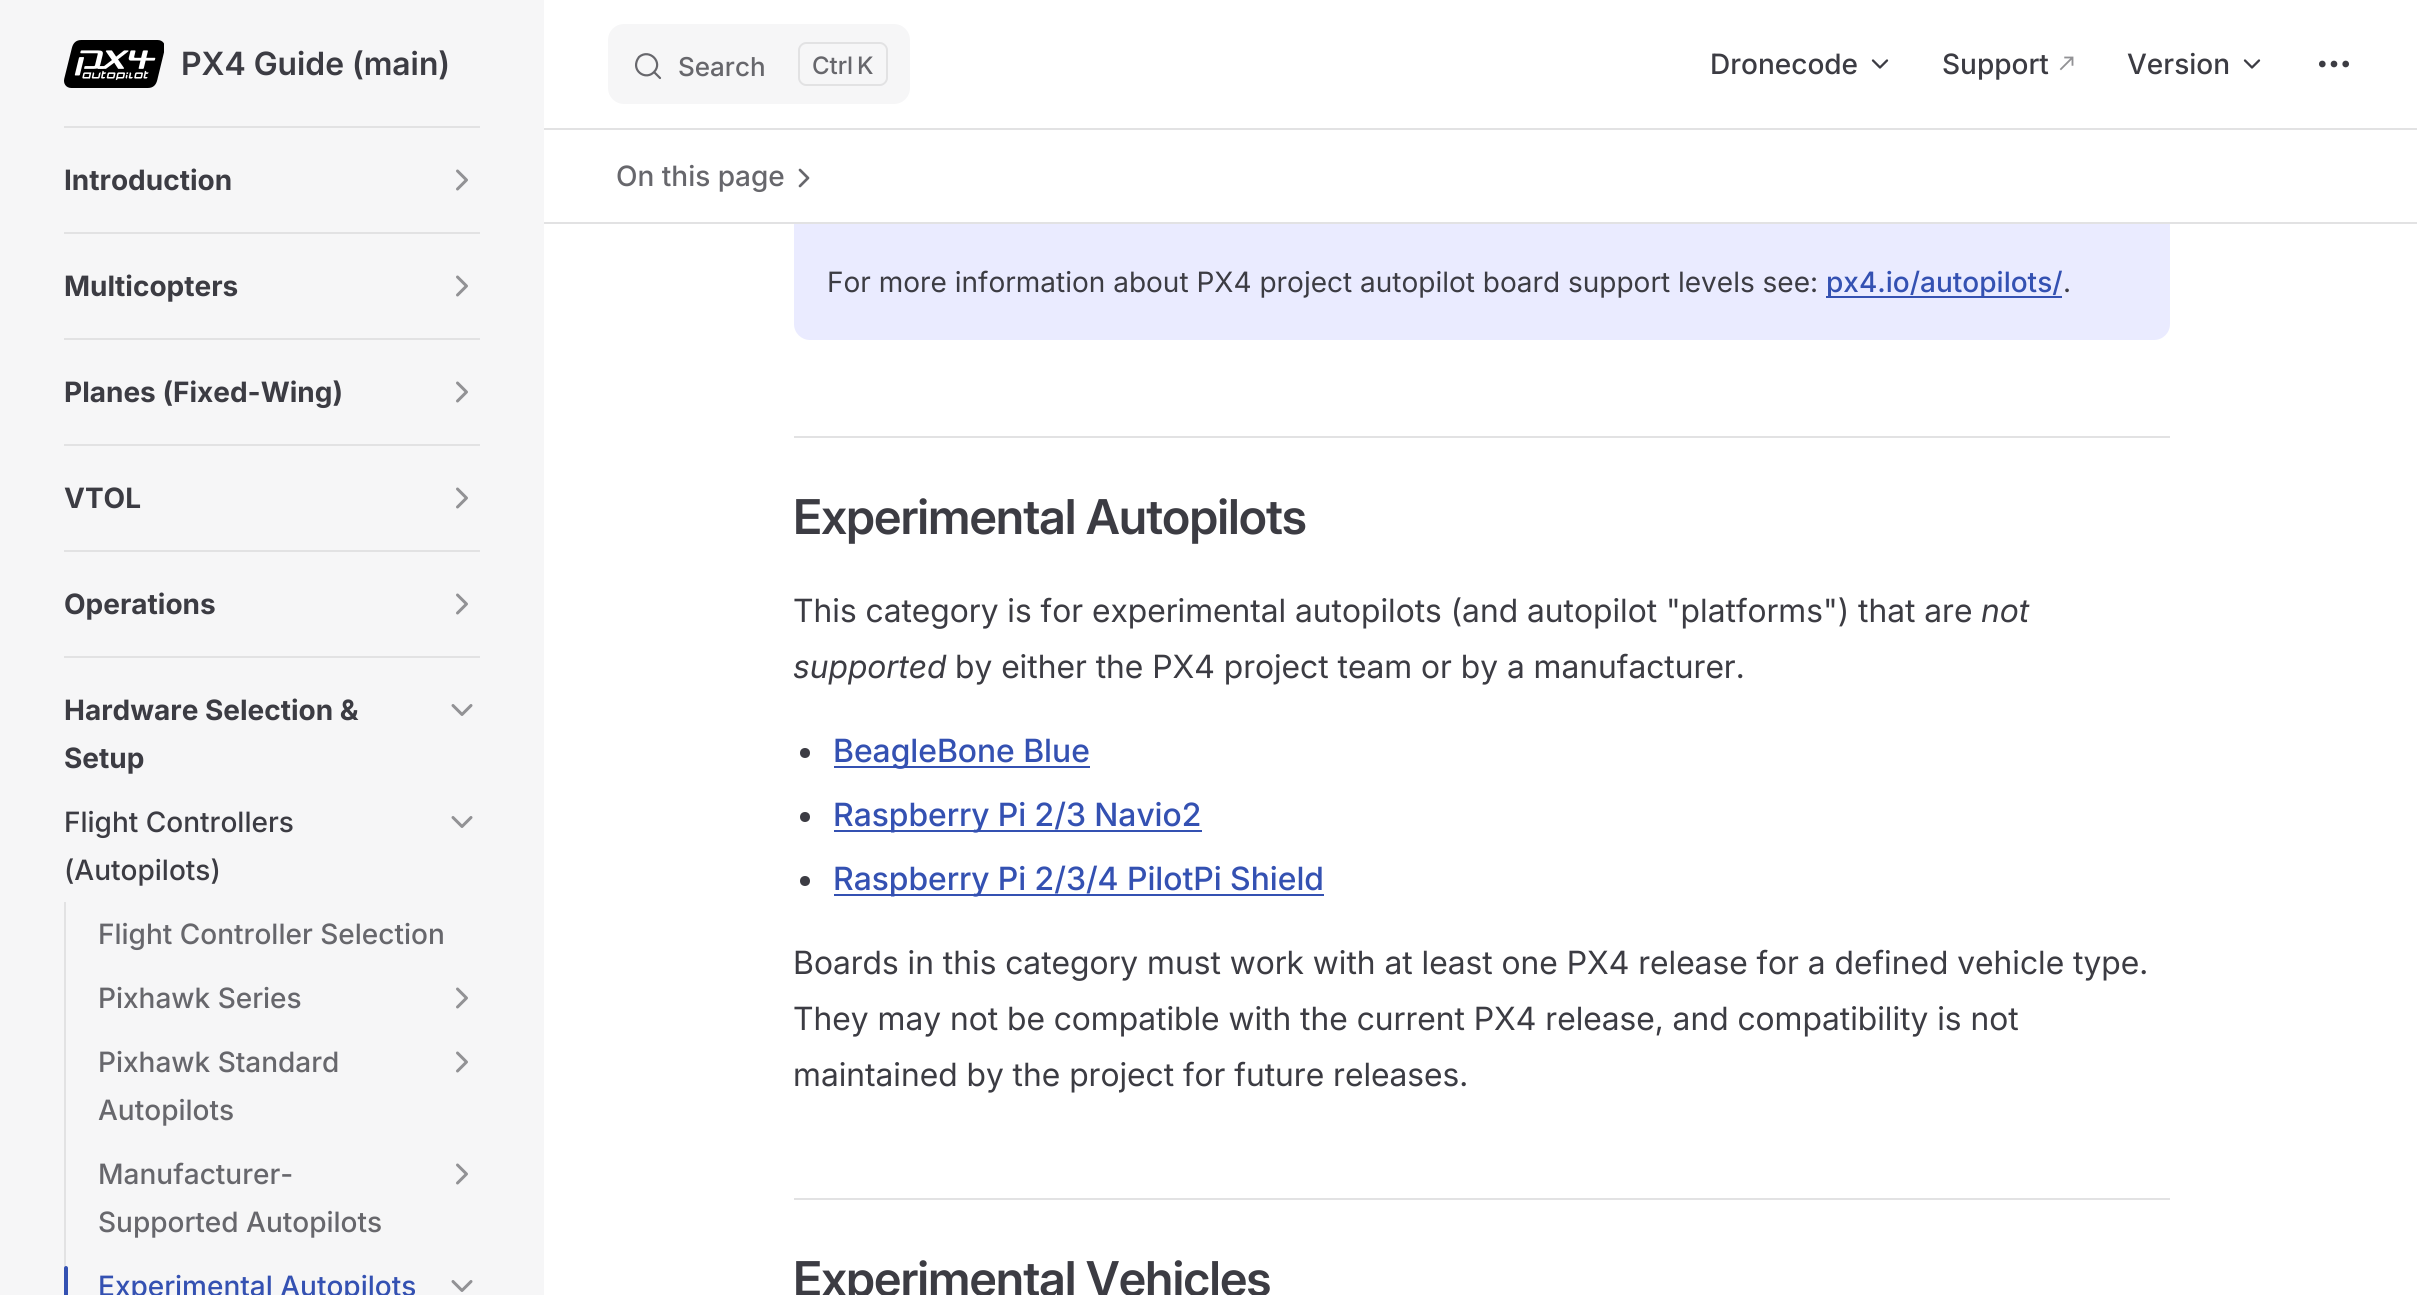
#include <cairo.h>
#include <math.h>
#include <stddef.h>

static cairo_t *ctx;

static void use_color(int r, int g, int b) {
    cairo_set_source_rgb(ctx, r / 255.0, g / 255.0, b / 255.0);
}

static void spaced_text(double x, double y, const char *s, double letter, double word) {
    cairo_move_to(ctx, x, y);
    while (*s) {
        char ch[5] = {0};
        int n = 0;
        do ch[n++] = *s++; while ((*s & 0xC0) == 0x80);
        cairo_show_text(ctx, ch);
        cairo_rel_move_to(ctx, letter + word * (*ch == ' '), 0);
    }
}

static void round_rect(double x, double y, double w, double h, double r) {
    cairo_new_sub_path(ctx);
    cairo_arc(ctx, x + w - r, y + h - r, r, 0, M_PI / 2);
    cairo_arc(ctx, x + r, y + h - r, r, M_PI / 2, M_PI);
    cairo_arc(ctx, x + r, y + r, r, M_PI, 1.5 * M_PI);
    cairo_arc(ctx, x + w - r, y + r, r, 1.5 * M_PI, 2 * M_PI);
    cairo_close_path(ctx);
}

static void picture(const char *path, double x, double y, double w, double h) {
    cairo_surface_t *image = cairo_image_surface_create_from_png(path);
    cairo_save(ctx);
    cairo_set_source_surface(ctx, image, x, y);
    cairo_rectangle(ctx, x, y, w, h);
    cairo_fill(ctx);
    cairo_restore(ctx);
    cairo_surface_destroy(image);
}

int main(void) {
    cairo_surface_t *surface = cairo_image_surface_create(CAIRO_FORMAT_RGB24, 2417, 1295);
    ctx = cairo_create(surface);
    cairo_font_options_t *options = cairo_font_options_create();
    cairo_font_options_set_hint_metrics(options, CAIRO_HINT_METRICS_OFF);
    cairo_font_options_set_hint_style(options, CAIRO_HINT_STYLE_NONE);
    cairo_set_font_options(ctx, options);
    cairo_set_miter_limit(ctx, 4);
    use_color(255, 255, 255);
    cairo_paint(ctx);
    use_color(246, 246, 247);
    cairo_rectangle(ctx, 0, 0, 544, 1295);
    cairo_fill(ctx);
    use_color(226, 226, 227);
    cairo_rectangle(ctx, 64, 126, 416, 2);
    cairo_fill(ctx);
    picture("img1.png", 64, 40, 100, 48);
    cairo_select_font_face(ctx, "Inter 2 SemiBold", CAIRO_FONT_SLANT_NORMAL, CAIRO_FONT_WEIGHT_NORMAL);
    cairo_set_font_size(ctx, 32);
    use_color(60, 60, 67);
    cairo_move_to(ctx, 181, 75);
    cairo_show_text(ctx, "PX4 Guide (main)");
    use_color(246, 246, 247);
    round_rect(608, 24, 302, 80, 16);
    cairo_fill(ctx);
    cairo_new_path(ctx);
    cairo_move_to(ctx, 654, 72);
    cairo_line_to(ctx, 660, 78);
    cairo_line_to(ctx, 654, 72);
    cairo_curve_to(ctx, 646.5, 80, 633.5, 72.5, 636.5, 62);
    cairo_curve_to(ctx, 637, 60, 638, 58.5, 639, 57);
    cairo_curve_to(ctx, 649.5, 48, 663.5, 62.5, 654, 72);
    cairo_close_path(ctx);
    use_color(103, 103, 108);
    cairo_set_line_width(ctx, 2.2);
    cairo_set_line_cap(ctx, CAIRO_LINE_CAP_ROUND);
    cairo_set_line_join(ctx, CAIRO_LINE_JOIN_ROUND);
    cairo_stroke(ctx);
    cairo_select_font_face(ctx, "Inter Medium", CAIRO_FONT_SLANT_NORMAL, CAIRO_FONT_WEIGHT_NORMAL);
    cairo_set_font_size(ctx, 26);
    cairo_move_to(ctx, 678, 76);
    cairo_show_text(ctx, "Search");
    use_color(226, 226, 227);
    cairo_set_fill_rule(ctx, CAIRO_FILL_RULE_EVEN_ODD);
    cairo_new_path(ctx);
    cairo_move_to(ctx, 806, 42);
    cairo_line_to(ctx, 852, 42);
    cairo_line_to(ctx, 852, 86);
    cairo_line_to(ctx, 806, 86);
    cairo_curve_to(ctx, 802, 86, 798, 82, 798, 78);
    cairo_line_to(ctx, 798, 50);
    cairo_curve_to(ctx, 798, 46, 802, 42, 806, 42);
    cairo_close_path(ctx);
    cairo_move_to(ctx, 806, 44);
    cairo_line_to(ctx, 852, 44);
    cairo_line_to(ctx, 852, 84);
    cairo_line_to(ctx, 806, 84);
    cairo_curve_to(ctx, 803, 84, 800, 81, 800, 78);
    cairo_line_to(ctx, 800, 50);
    cairo_curve_to(ctx, 800, 47, 803, 44, 806, 44);
    cairo_close_path(ctx);
    cairo_fill(ctx);
    cairo_set_font_size(ctx, 24);
    use_color(103, 103, 108);
    cairo_move_to(ctx, 812, 74);
    cairo_show_text(ctx, "Ctrl");
    use_color(226, 226, 227);
    cairo_new_path(ctx);
    cairo_move_to(ctx, 852, 42);
    cairo_line_to(ctx, 880, 42);
    cairo_curve_to(ctx, 884, 42, 888, 46, 888, 50);
    cairo_line_to(ctx, 888, 78);
    cairo_curve_to(ctx, 888, 82, 884, 86, 880, 86);
    cairo_line_to(ctx, 852, 86);
    cairo_close_path(ctx);
    cairo_move_to(ctx, 852, 44);
    cairo_line_to(ctx, 880, 44);
    cairo_curve_to(ctx, 883, 44, 886, 47, 886, 50);
    cairo_line_to(ctx, 886, 78);
    cairo_curve_to(ctx, 886, 81, 883, 84, 880, 84);
    cairo_line_to(ctx, 852, 84);
    cairo_close_path(ctx);
    cairo_fill(ctx);
    use_color(103, 103, 108);
    cairo_move_to(ctx, 857, 74);
    cairo_show_text(ctx, "K");
    cairo_set_font_size(ctx, 28);
    use_color(60, 60, 67);
    cairo_move_to(ctx, 1710, 74);
    cairo_show_text(ctx, "Dronecode");
    cairo_new_path(ctx);
    cairo_move_to(ctx, 1873, 60.5);
    cairo_line_to(ctx, 1880, 67.5);
    cairo_line_to(ctx, 1887, 60.5);
    cairo_set_line_width(ctx, 2.3);
    cairo_stroke(ctx);
    cairo_move_to(ctx, 1942, 74);
    cairo_show_text(ctx, "Support");
    picture("img2.png", 2059, 56, 15, 15);
    cairo_move_to(ctx, 2127, 74);
    cairo_show_text(ctx, "Version");
    cairo_new_path(ctx);
    cairo_move_to(ctx, 2245, 60.5);
    cairo_line_to(ctx, 2252, 67.5);
    cairo_line_to(ctx, 2259, 60.5);
    cairo_stroke(ctx);
    cairo_arc(ctx, 2334, 64, 1.7, 0, 2 * M_PI);
    cairo_set_line_width(ctx, 3.3);
    cairo_set_line_cap(ctx, CAIRO_LINE_CAP_BUTT);
    cairo_set_line_join(ctx, CAIRO_LINE_JOIN_MITER);
    cairo_stroke(ctx);
    cairo_arc(ctx, 2345.7, 64, 1.7, 0, 2 * M_PI);
    cairo_stroke(ctx);
    cairo_arc(ctx, 2322.3, 64, 1.7, 0, 2 * M_PI);
    cairo_stroke(ctx);
    use_color(226, 226, 227);
    cairo_rectangle(ctx, 544, 128, 1873, 2);
    cairo_fill(ctx);
    cairo_select_font_face(ctx, "Inter", CAIRO_FONT_SLANT_NORMAL, CAIRO_FONT_WEIGHT_BOLD);
    use_color(60, 60, 67);
    cairo_move_to(ctx, 64, 190);
    cairo_show_text(ctx, "Introduction");
    cairo_new_path(ctx);
    cairo_move_to(ctx, 457.5, 189);
    cairo_line_to(ctx, 466.5, 180);
    cairo_line_to(ctx, 457.5, 171);
    use_color(146, 146, 149);
    cairo_set_line_width(ctx, 3);
    cairo_set_line_cap(ctx, CAIRO_LINE_CAP_ROUND);
    cairo_set_line_join(ctx, CAIRO_LINE_JOIN_ROUND);
    cairo_stroke(ctx);
    use_color(226, 226, 227);
    cairo_rectangle(ctx, 64, 232, 416, 2);
    cairo_fill(ctx);
    use_color(60, 60, 67);
    cairo_move_to(ctx, 64, 296);
    cairo_show_text(ctx, "Multicopters");
    cairo_new_path(ctx);
    cairo_move_to(ctx, 457.5, 295);
    cairo_line_to(ctx, 466.5, 286);
    cairo_line_to(ctx, 457.5, 277);
    use_color(146, 146, 149);
    cairo_stroke(ctx);
    use_color(226, 226, 227);
    cairo_rectangle(ctx, 64, 338, 416, 2);
    cairo_fill(ctx);
    use_color(60, 60, 67);
    cairo_move_to(ctx, 64, 402);
    cairo_show_text(ctx, "Planes (Fixed-Wing)");
    cairo_new_path(ctx);
    cairo_move_to(ctx, 457.5, 401);
    cairo_line_to(ctx, 466.5, 392);
    cairo_line_to(ctx, 457.5, 383);
    use_color(146, 146, 149);
    cairo_stroke(ctx);
    use_color(226, 226, 227);
    cairo_rectangle(ctx, 64, 444, 416, 2);
    cairo_fill(ctx);
    use_color(60, 60, 67);
    cairo_move_to(ctx, 64, 508);
    cairo_show_text(ctx, "VTOL");
    cairo_new_path(ctx);
    cairo_move_to(ctx, 457.5, 507);
    cairo_line_to(ctx, 466.5, 498);
    cairo_line_to(ctx, 457.5, 489);
    use_color(146, 146, 149);
    cairo_stroke(ctx);
    use_color(226, 226, 227);
    cairo_rectangle(ctx, 64, 550, 416, 2);
    cairo_fill(ctx);
    use_color(60, 60, 67);
    cairo_move_to(ctx, 64, 614);
    cairo_show_text(ctx, "Operations");
    cairo_new_path(ctx);
    cairo_move_to(ctx, 457.5, 613);
    cairo_line_to(ctx, 466.5, 604);
    cairo_line_to(ctx, 457.5, 595);
    use_color(146, 146, 149);
    cairo_stroke(ctx);
    use_color(226, 226, 227);
    cairo_rectangle(ctx, 64, 656, 416, 2);
    cairo_fill(ctx);
    use_color(60, 60, 67);
    cairo_move_to(ctx, 64, 720);
    cairo_show_text(ctx, "Hardware Selection &");
    cairo_move_to(ctx, 64, 768);
    cairo_show_text(ctx, "Setup");
    cairo_new_path(ctx);
    cairo_move_to(ctx, 453, 705.5);
    cairo_line_to(ctx, 462, 714.5);
    cairo_line_to(ctx, 471, 705.5);
    use_color(146, 146, 149);
    cairo_stroke(ctx);
    cairo_select_font_face(ctx, "Inter Medium", CAIRO_FONT_SLANT_NORMAL, CAIRO_FONT_WEIGHT_NORMAL);
    use_color(60, 60, 67);
    cairo_move_to(ctx, 64, 832);
    cairo_show_text(ctx, "Flight Controllers");
    cairo_move_to(ctx, 64, 880);
    cairo_show_text(ctx, "(Autopilots)");
    cairo_new_path(ctx);
    cairo_move_to(ctx, 453, 817.5);
    cairo_line_to(ctx, 462, 826.5);
    cairo_line_to(ctx, 471, 817.5);
    use_color(146, 146, 149);
    cairo_stroke(ctx);
    use_color(226, 226, 227);
    cairo_rectangle(ctx, 64, 902, 2, 366);
    cairo_fill(ctx);
    use_color(103, 103, 108);
    cairo_move_to(ctx, 98, 944);
    cairo_show_text(ctx, "Flight Controller Selection");
    cairo_move_to(ctx, 98, 1008);
    cairo_show_text(ctx, "Pixhawk Series");
    cairo_new_path(ctx);
    cairo_move_to(ctx, 457.5, 1007);
    cairo_line_to(ctx, 466.5, 998);
    cairo_line_to(ctx, 457.5, 989);
    use_color(146, 146, 149);
    cairo_stroke(ctx);
    use_color(103, 103, 108);
    cairo_move_to(ctx, 98, 1072);
    cairo_show_text(ctx, "Pixhawk Standard");
    cairo_move_to(ctx, 98, 1120);
    cairo_show_text(ctx, "Autopilots");
    cairo_new_path(ctx);
    cairo_move_to(ctx, 457.5, 1071);
    cairo_line_to(ctx, 466.5, 1062);
    cairo_line_to(ctx, 457.5, 1053);
    use_color(146, 146, 149);
    cairo_stroke(ctx);
    use_color(103, 103, 108);
    cairo_move_to(ctx, 98, 1184);
    cairo_show_text(ctx, "Manufacturer-");
    cairo_move_to(ctx, 98, 1232);
    cairo_show_text(ctx, "Supported Autopilots");
    cairo_new_path(ctx);
    cairo_move_to(ctx, 457.5, 1183);
    cairo_line_to(ctx, 466.5, 1174);
    cairo_line_to(ctx, 457.5, 1165);
    use_color(146, 146, 149);
    cairo_stroke(ctx);
    use_color(52, 81, 178);
    cairo_new_path(ctx);
    cairo_move_to(ctx, 66, 1266);
    cairo_curve_to(ctx, 67, 1266, 68, 1267, 68, 1268);
    cairo_line_to(ctx, 68, 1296);
    cairo_line_to(ctx, 64, 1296);
    cairo_line_to(ctx, 64, 1268);
    cairo_curve_to(ctx, 64, 1267, 65, 1266, 66, 1266);
    cairo_close_path(ctx);
    cairo_fill(ctx);
    cairo_move_to(ctx, 98, 1296);
    cairo_show_text(ctx, "Experimental Autopilots");
    cairo_new_path(ctx);
    cairo_move_to(ctx, 453, 1281.5);
    cairo_line_to(ctx, 462, 1290.5);
    cairo_line_to(ctx, 471, 1281.5);
    use_color(146, 146, 149);
    cairo_stroke(ctx);
    use_color(234, 235, 255);
    round_rect(794, 160, 1376, 180, 16);
    cairo_fill(ctx);
    use_color(255, 255, 255);
    cairo_rectangle(ctx, 794, 160, 1376, 62);
    cairo_fill(ctx);
    use_color(226, 226, 227);
    cairo_rectangle(ctx, 544, 222, 1873, 2);
    cairo_fill(ctx);
    use_color(103, 103, 108);
    cairo_move_to(ctx, 616, 186);
    cairo_show_text(ctx, "On this page");
    cairo_new_path(ctx);
    cairo_move_to(ctx, 800, 186);
    cairo_line_to(ctx, 808, 178);
    cairo_line_to(ctx, 800, 170);
    cairo_set_line_width(ctx, 2.7);
    cairo_stroke(ctx);
    cairo_select_font_face(ctx, "Inter", CAIRO_FONT_SLANT_NORMAL, CAIRO_FONT_WEIGHT_NORMAL);
    use_color(60, 60, 67);
    cairo_move_to(ctx, 827, 292);
    cairo_show_text(ctx, "For more information about PX4 project autopilot board support levels see:");
    use_color(52, 81, 178);
    cairo_rectangle(ctx, 1826, 296, 236, 2);
    cairo_fill(ctx);
    cairo_select_font_face(ctx, "Inter Medium", CAIRO_FONT_SLANT_NORMAL, CAIRO_FONT_WEIGHT_NORMAL);
    cairo_move_to(ctx, 1826, 292);
    cairo_show_text(ctx, "px4.io/autopilots/");
    cairo_select_font_face(ctx, "Inter", CAIRO_FONT_SLANT_NORMAL, CAIRO_FONT_WEIGHT_NORMAL);
    use_color(60, 60, 67);
    cairo_move_to(ctx, 2063, 292);
    cairo_show_text(ctx, ".");
    use_color(226, 226, 227);
    cairo_rectangle(ctx, 794, 436, 1376, 2);
    cairo_fill(ctx);
    cairo_select_font_face(ctx, "Inter SemiBold", CAIRO_FONT_SLANT_NORMAL, CAIRO_FONT_WEIGHT_NORMAL);
    cairo_set_font_size(ctx, 48);
    use_color(60, 60, 67);
    spaced_text(793, 534, "Experimental Autopilots", -1, 0);
    cairo_select_font_face(ctx, "Inter 2", CAIRO_FONT_SLANT_NORMAL, CAIRO_FONT_WEIGHT_NORMAL);
    cairo_set_font_size(ctx, 32);
    cairo_move_to(ctx, 793, 622);
    cairo_show_text(ctx, "This category is for experimental autopilots (and autopilot \"platforms\") that are");
    cairo_select_font_face(ctx, "Inter", CAIRO_FONT_SLANT_ITALIC, CAIRO_FONT_WEIGHT_NORMAL);
    cairo_move_to(ctx, 1981, 622);
    cairo_show_text(ctx, "not");
    cairo_move_to(ctx, 793, 678);
    cairo_show_text(ctx, "supported");
    cairo_select_font_face(ctx, "Inter 2", CAIRO_FONT_SLANT_NORMAL, CAIRO_FONT_WEIGHT_NORMAL);
    cairo_move_to(ctx, 955, 678);
    cairo_show_text(ctx, "by either the PX4 project team or by a manufacturer.");
    cairo_new_path(ctx);
    cairo_arc(ctx, 805, 753, 5, 0, 2 * M_PI);
    cairo_fill(ctx);
    use_color(52, 81, 178);
    cairo_rectangle(ctx, 834, 766, 256, 2);
    cairo_fill(ctx);
    cairo_select_font_face(ctx, "Inter 2 Medium", CAIRO_FONT_SLANT_NORMAL, CAIRO_FONT_WEIGHT_NORMAL);
    cairo_move_to(ctx, 833, 762);
    cairo_show_text(ctx, "BeagleBone Blue");
    use_color(60, 60, 67);
    cairo_new_path(ctx);
    cairo_arc(ctx, 805, 817, 5, 0, 2 * M_PI);
    cairo_fill(ctx);
    use_color(52, 81, 178);
    cairo_rectangle(ctx, 834, 830, 368, 2);
    cairo_fill(ctx);
    cairo_move_to(ctx, 833, 826);
    cairo_show_text(ctx, "Raspberry Pi 2/3 Navio2");
    use_color(60, 60, 67);
    cairo_new_path(ctx);
    cairo_arc(ctx, 805, 881, 5, 0, 2 * M_PI);
    cairo_fill(ctx);
    use_color(52, 81, 178);
    cairo_rectangle(ctx, 834, 894, 490, 2);
    cairo_fill(ctx);
    cairo_move_to(ctx, 833, 890);
    cairo_show_text(ctx, "Raspberry Pi 2/3/4 PilotPi Shield");
    cairo_select_font_face(ctx, "Inter 2", CAIRO_FONT_SLANT_NORMAL, CAIRO_FONT_WEIGHT_NORMAL);
    use_color(60, 60, 67);
    cairo_move_to(ctx, 793, 974);
    cairo_show_text(ctx, "Boards in this category must work with at least one PX4 release for a defined vehicle type.");
    cairo_move_to(ctx, 793, 1030);
    cairo_show_text(ctx, "They may not be compatible with the current PX4 release, and compatibility is not");
    cairo_move_to(ctx, 793, 1086);
    cairo_show_text(ctx, "maintained by the project for future releases.");
    use_color(226, 226, 227);
    cairo_rectangle(ctx, 794, 1198, 1376, 2);
    cairo_fill(ctx);
    cairo_select_font_face(ctx, "Inter SemiBold", CAIRO_FONT_SLANT_NORMAL, CAIRO_FONT_WEIGHT_NORMAL);
    cairo_set_font_size(ctx, 48);
    use_color(60, 60, 67);
    spaced_text(793, 1296, "Experimental Vehicles", -1, 0);
    cairo_surface_write_to_png(surface, "result.png");
    cairo_font_options_destroy(options);
    cairo_destroy(ctx);
    cairo_surface_destroy(surface);
    return 0;
}
